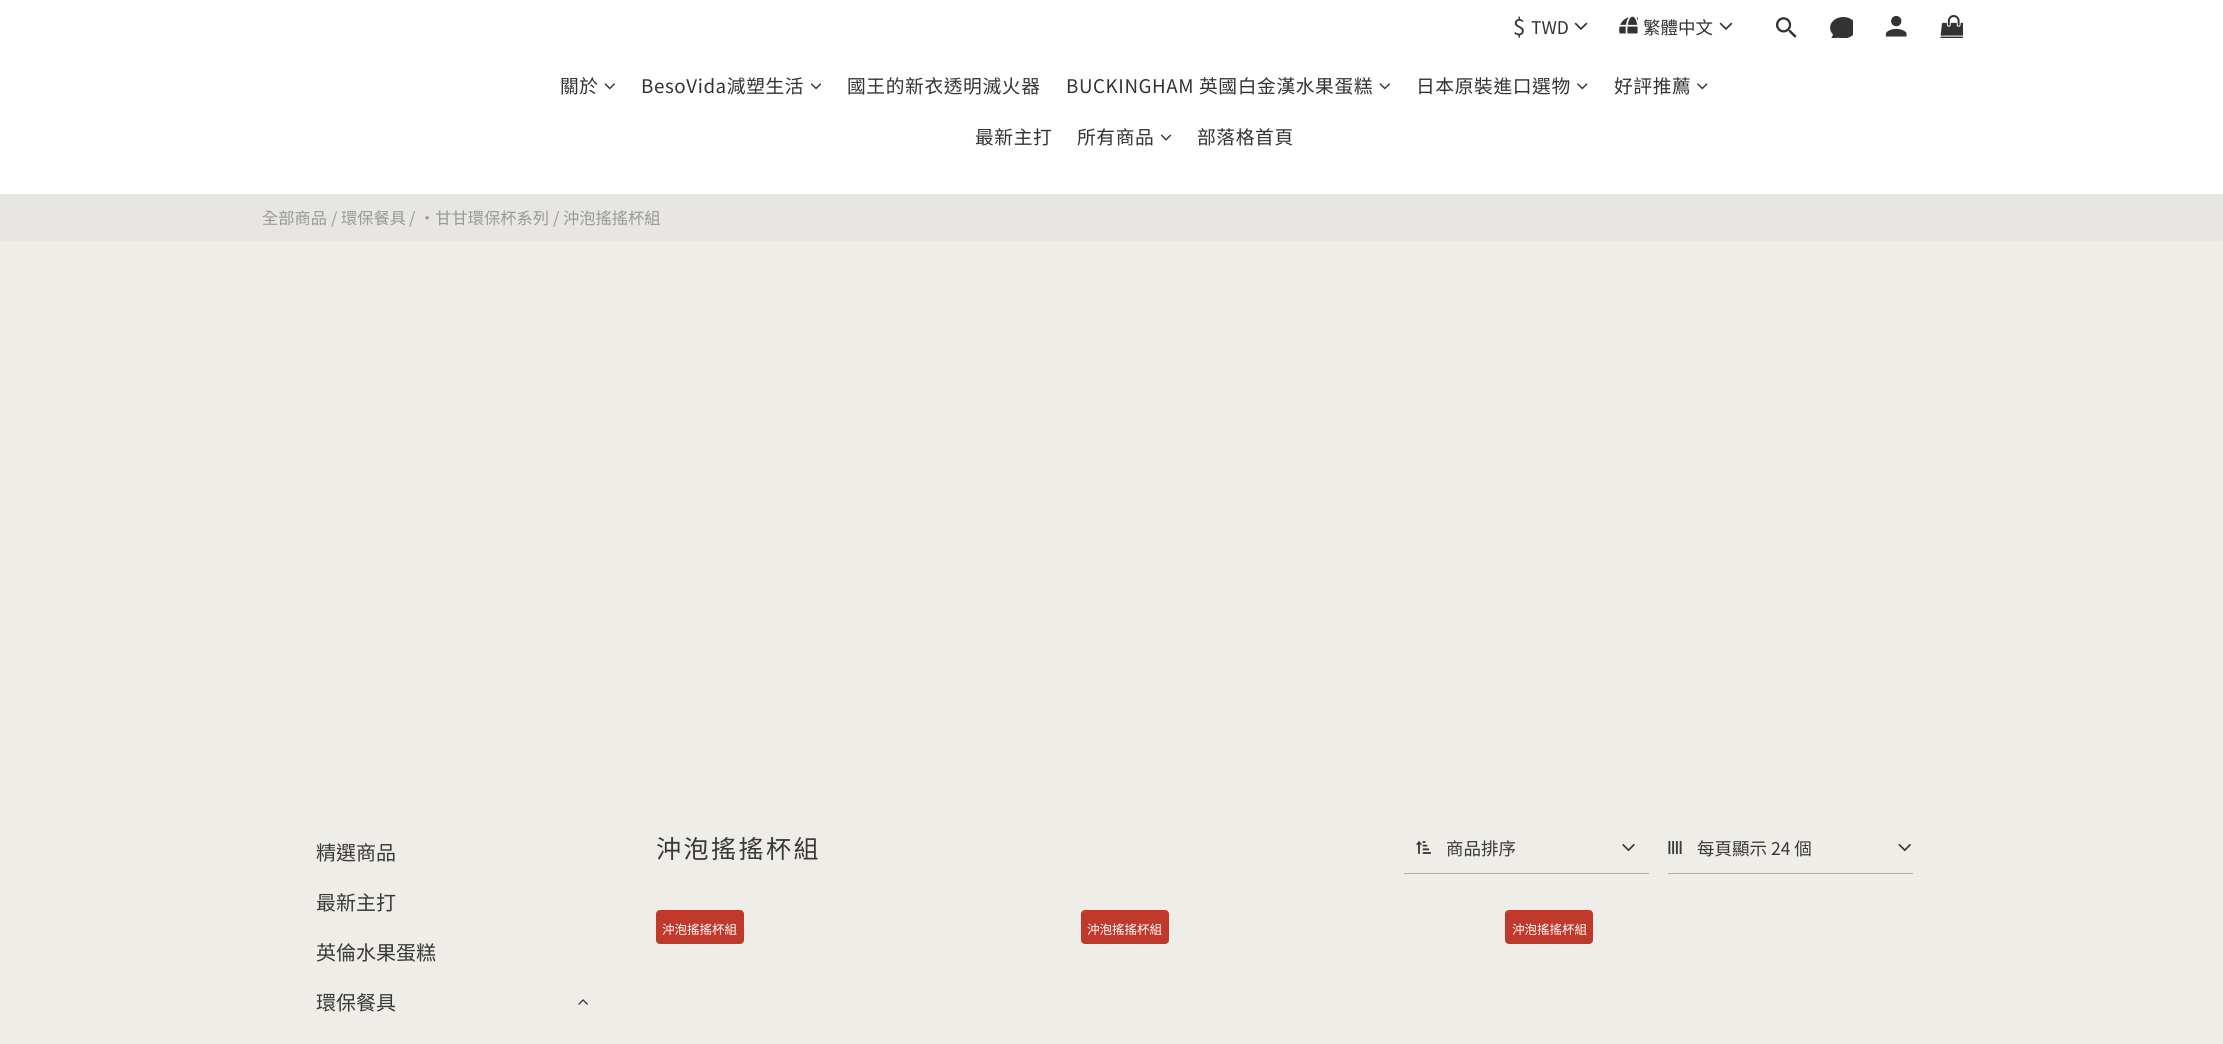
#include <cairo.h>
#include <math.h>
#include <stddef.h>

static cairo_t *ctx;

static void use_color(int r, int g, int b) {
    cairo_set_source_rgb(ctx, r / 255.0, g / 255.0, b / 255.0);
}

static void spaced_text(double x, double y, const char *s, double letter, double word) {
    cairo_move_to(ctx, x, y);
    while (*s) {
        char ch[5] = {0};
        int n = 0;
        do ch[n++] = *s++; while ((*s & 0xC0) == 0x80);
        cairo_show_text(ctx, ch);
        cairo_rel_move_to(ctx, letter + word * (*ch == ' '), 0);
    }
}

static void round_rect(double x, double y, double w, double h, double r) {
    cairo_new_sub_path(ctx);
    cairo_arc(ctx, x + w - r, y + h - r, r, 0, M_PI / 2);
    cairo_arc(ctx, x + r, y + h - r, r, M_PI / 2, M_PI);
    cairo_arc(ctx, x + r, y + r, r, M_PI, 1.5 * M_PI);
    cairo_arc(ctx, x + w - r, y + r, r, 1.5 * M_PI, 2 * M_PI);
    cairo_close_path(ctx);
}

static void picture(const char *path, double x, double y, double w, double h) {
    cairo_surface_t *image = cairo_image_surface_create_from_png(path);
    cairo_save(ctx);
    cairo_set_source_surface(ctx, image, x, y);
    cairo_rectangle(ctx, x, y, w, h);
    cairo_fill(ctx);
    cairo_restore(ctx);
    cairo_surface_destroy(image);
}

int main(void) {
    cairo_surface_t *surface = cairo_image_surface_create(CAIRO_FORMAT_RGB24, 2223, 1044);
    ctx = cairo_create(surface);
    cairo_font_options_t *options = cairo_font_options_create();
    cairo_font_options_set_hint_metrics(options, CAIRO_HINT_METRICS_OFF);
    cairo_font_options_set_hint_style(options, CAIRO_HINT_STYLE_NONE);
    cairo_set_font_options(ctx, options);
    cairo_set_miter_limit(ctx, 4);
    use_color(239, 237, 232);
    cairo_paint(ctx);
    use_color(255, 255, 255);
    cairo_rectangle(ctx, 0, 0, 2223, 194);
    cairo_fill(ctx);
    cairo_select_font_face(ctx, "Noto Sans TC", CAIRO_FONT_SLANT_NORMAL, CAIRO_FONT_WEIGHT_NORMAL);
    cairo_set_font_size(ctx, 22);
    use_color(51, 51, 51);
    spaced_text(1513, 35, "$", 1, 0);
    cairo_set_font_size(ctx, 17.5);
    cairo_move_to(ctx, 1531, 34);
    cairo_show_text(ctx, "TWD");
    picture("img1.png", 1574, 22, 14, 8);
    picture("img2.png", 1619, 16, 19, 18);
    cairo_move_to(ctx, 1643, 34);
    cairo_show_text(ctx, "繁體中文");
    picture("img1.png", 1719, 22, 14, 8);
    picture("img3.png", 1775, 17, 22, 21);
    picture("img4.png", 1830, 17, 23, 21);
    picture("img5.png", 1885, 15, 22, 22);
    picture("img6.png", 1940, 15, 23, 23);
    cairo_set_font_size(ctx, 18.75);
    spaced_text(560, 93, "關於", 0.6, 0);
    picture("img7.png", 604, 83, 11, 7);
    spaced_text(641, 93, "BesoVida減塑生活", 0.6, 0);
    picture("img8.png", 810, 83, 12, 7);
    spaced_text(847, 93, "國王的新衣透明滅火器", 0.6, 0);
    spaced_text(1066, 93, "BUCKINGHAM 英國白金漢水果蛋糕", 0.6, 0);
    picture("img7.png", 1379, 83, 11, 7);
    spaced_text(1416, 93, "日本原裝進口選物", 0.6, 0);
    picture("img9.png", 1577, 83, 11, 7);
    spaced_text(1614, 93, "好評推薦", 0.6, 0);
    picture("img9.png", 1697, 83, 11, 7);
    spaced_text(975, 144, "最新主打", 0.6, 0);
    spaced_text(1077, 144, "所有商品", 0.6, 0);
    picture("img10.png", 1160, 134, 12, 7);
    spaced_text(1197, 144, "部落格首頁", 0.6, 0);
    use_color(232, 230, 226);
    cairo_rectangle(ctx, 0, 194, 2223, 47);
    cairo_fill(ctx);
    cairo_set_font_size(ctx, 16.25);
    use_color(153, 153, 153);
    cairo_move_to(ctx, 262, 224);
    cairo_show_text(ctx, "全部商品");
    cairo_move_to(ctx, 331, 224);
    cairo_show_text(ctx, "/ 環保餐具");
    cairo_move_to(ctx, 409, 224);
    cairo_show_text(ctx, "/ •甘甘環保杯系列");
    cairo_move_to(ctx, 553, 224);
    cairo_show_text(ctx, "/ 沖泡搖搖杯組");
    cairo_set_font_size(ctx, 20);
    use_color(58, 57, 57);
    cairo_move_to(ctx, 316, 860);
    cairo_show_text(ctx, "精選商品");
    cairo_move_to(ctx, 316, 910);
    cairo_show_text(ctx, "最新主打");
    cairo_move_to(ctx, 316, 960);
    cairo_show_text(ctx, "英倫水果蛋糕");
    cairo_move_to(ctx, 316, 1010);
    cairo_show_text(ctx, "環保餐具");
    picture("img11.png", 578, 999, 10, 6);
    cairo_set_font_size(ctx, 25);
    spaced_text(656, 858, "沖泡搖搖杯組", 2.5, 0);
    use_color(185, 176, 154);
    cairo_rectangle(ctx, 1404, 873, 245, 1);
    cairo_fill(ctx);
    picture("img12.png", 1416, 841, 15, 13);
    cairo_set_font_size(ctx, 17.5);
    use_color(58, 57, 57);
    cairo_move_to(ctx, 1446, 855);
    cairo_show_text(ctx, "商品排序");
    picture("img13.png", 1622, 844, 13, 8);
    use_color(185, 176, 154);
    cairo_rectangle(ctx, 1668, 873, 245, 1);
    cairo_fill(ctx);
    picture("img14.png", 1668, 840, 14, 15);
    use_color(58, 57, 57);
    cairo_move_to(ctx, 1697, 855);
    cairo_show_text(ctx, "每頁顯示 24 個");
    picture("img15.png", 1898, 844, 13, 8);
    use_color(192, 57, 43);
    round_rect(656, 910, 88, 34, 4);
    cairo_fill(ctx);
    cairo_set_font_size(ctx, 12.5);
    use_color(255, 255, 255);
    cairo_move_to(ctx, 662, 934);
    cairo_show_text(ctx, "沖泡搖搖杯組");
    use_color(192, 57, 43);
    round_rect(1081, 910, 88, 34, 4);
    cairo_fill(ctx);
    use_color(255, 255, 255);
    cairo_move_to(ctx, 1087, 934);
    cairo_show_text(ctx, "沖泡搖搖杯組");
    use_color(192, 57, 43);
    round_rect(1505, 910, 88, 34, 4);
    cairo_fill(ctx);
    use_color(255, 255, 255);
    cairo_move_to(ctx, 1512, 934);
    cairo_show_text(ctx, "沖泡搖搖杯組");
    cairo_surface_write_to_png(surface, "result.png");
    cairo_font_options_destroy(options);
    cairo_destroy(ctx);
    cairo_surface_destroy(surface);
    return 0;
}
